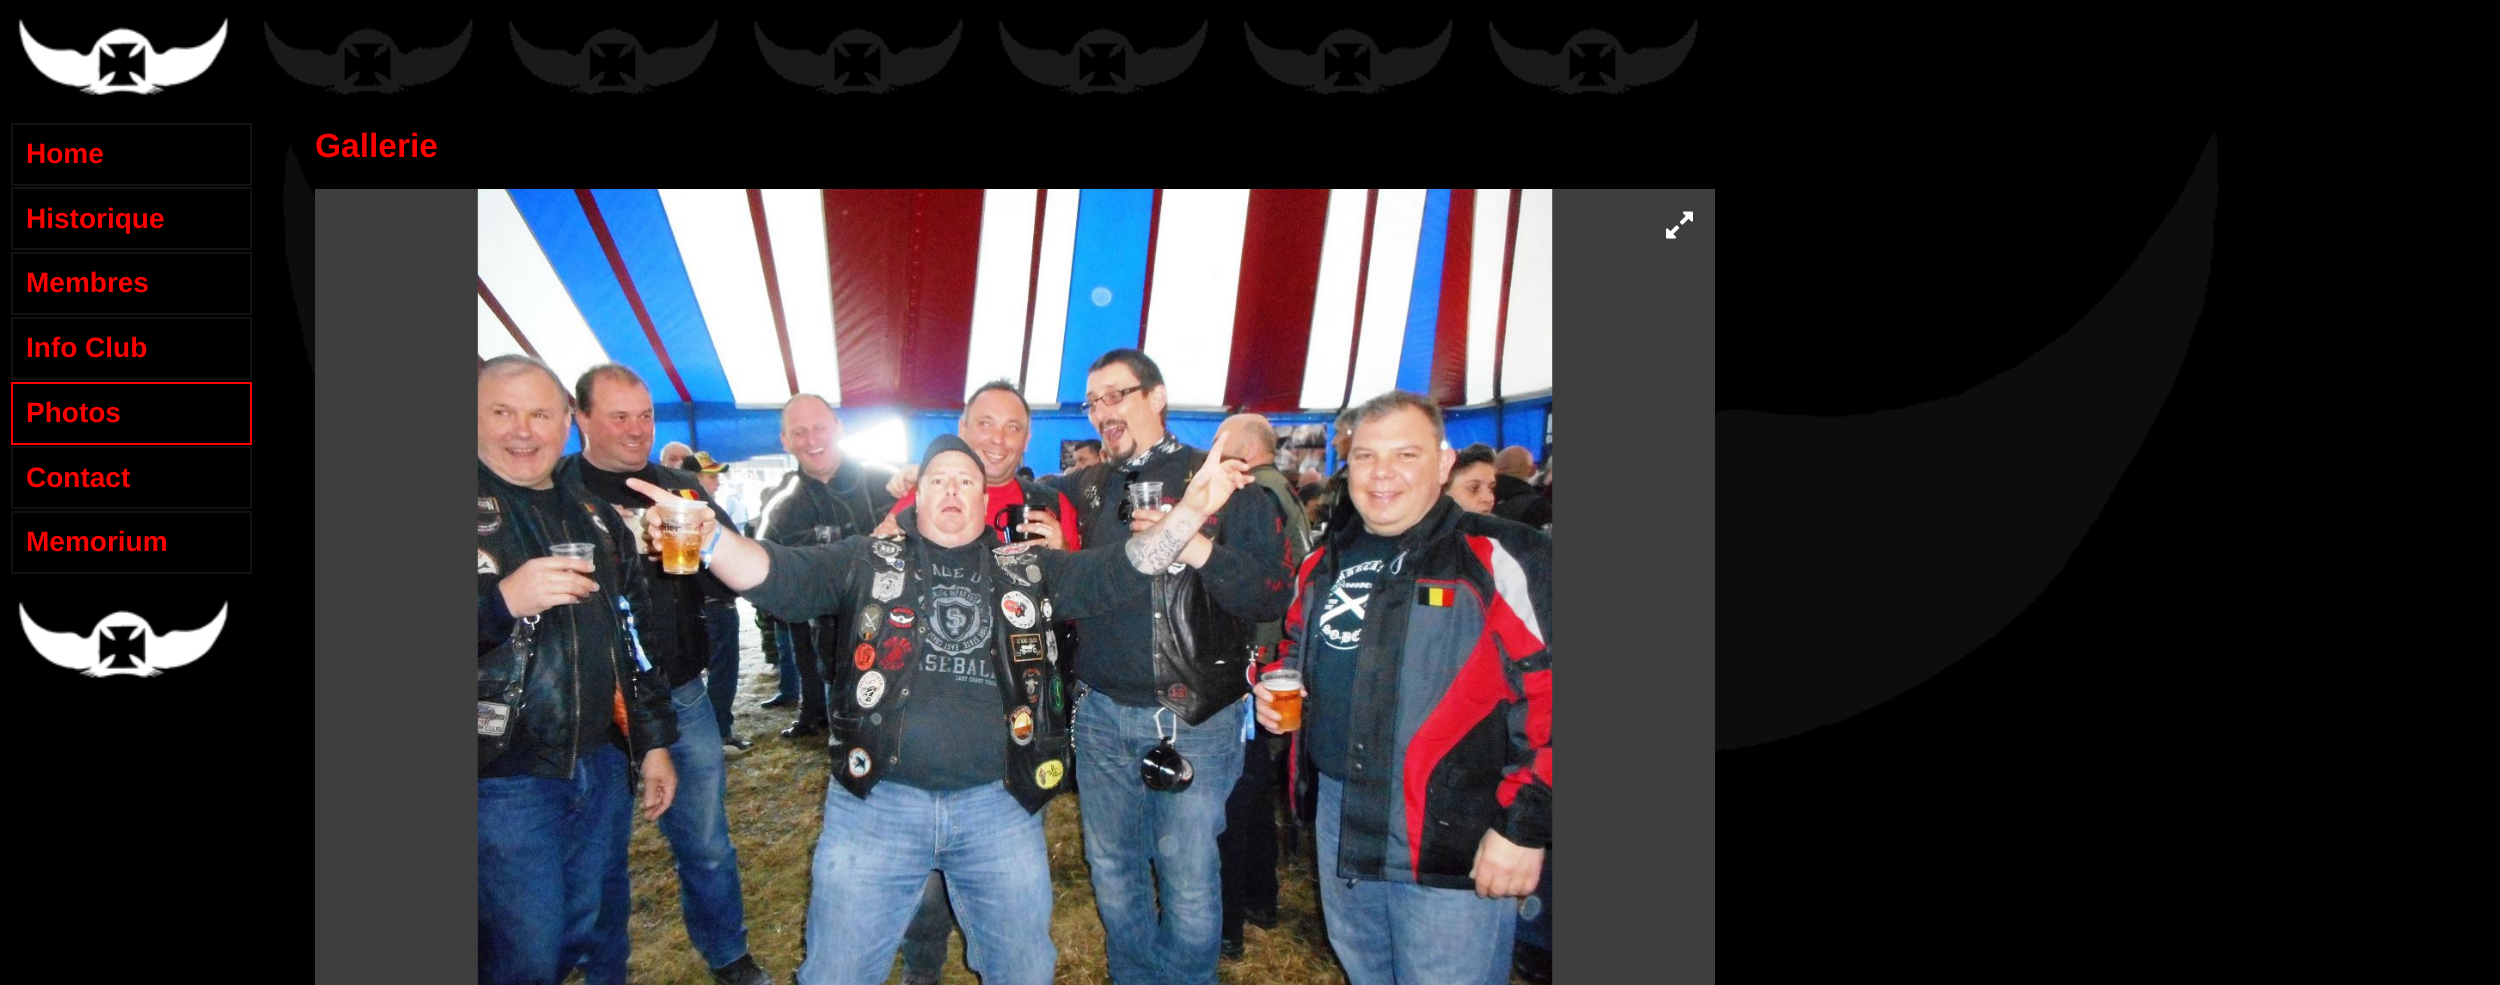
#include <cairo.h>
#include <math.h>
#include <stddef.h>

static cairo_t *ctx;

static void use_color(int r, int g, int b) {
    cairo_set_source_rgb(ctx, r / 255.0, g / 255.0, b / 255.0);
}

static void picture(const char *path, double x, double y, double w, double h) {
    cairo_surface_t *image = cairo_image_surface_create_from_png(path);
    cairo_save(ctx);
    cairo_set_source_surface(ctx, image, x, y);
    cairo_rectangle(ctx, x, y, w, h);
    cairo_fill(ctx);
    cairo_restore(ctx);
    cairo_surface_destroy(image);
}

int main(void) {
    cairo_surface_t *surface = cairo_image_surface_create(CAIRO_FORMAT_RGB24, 2500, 985);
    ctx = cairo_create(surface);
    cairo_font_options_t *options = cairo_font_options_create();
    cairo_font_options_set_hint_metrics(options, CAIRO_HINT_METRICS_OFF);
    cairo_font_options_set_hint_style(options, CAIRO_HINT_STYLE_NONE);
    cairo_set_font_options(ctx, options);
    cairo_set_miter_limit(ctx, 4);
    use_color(0, 0, 0);
    cairo_paint(ctx);
    picture("img1.png", 282, 131, 1937, 714);
    picture("img2.png", 18, 17, 210, 78);
    cairo_rectangle(ctx, 12, 124, 239, 61);
    use_color(17, 17, 17);
    cairo_stroke(ctx);
    cairo_select_font_face(ctx, "Liberation Sans", CAIRO_FONT_SLANT_NORMAL, CAIRO_FONT_WEIGHT_BOLD);
    cairo_set_font_size(ctx, 28);
    use_color(255, 0, 0);
    cairo_move_to(ctx, 26, 163);
    cairo_show_text(ctx, "Home");
    cairo_rectangle(ctx, 12, 188, 239, 61);
    use_color(17, 17, 17);
    cairo_stroke(ctx);
    use_color(255, 0, 0);
    cairo_move_to(ctx, 26, 228);
    cairo_show_text(ctx, "Historique");
    cairo_rectangle(ctx, 12, 253, 239, 61);
    use_color(17, 17, 17);
    cairo_stroke(ctx);
    use_color(255, 0, 0);
    cairo_move_to(ctx, 26, 292);
    cairo_show_text(ctx, "Membres");
    cairo_rectangle(ctx, 12, 318, 239, 61);
    use_color(17, 17, 17);
    cairo_stroke(ctx);
    use_color(255, 0, 0);
    cairo_move_to(ctx, 26, 357);
    cairo_show_text(ctx, "Info Club");
    cairo_rectangle(ctx, 12, 383, 239, 61);
    cairo_stroke(ctx);
    cairo_move_to(ctx, 26, 422);
    cairo_show_text(ctx, "Photos");
    cairo_rectangle(ctx, 12, 447, 239, 61);
    use_color(17, 17, 17);
    cairo_stroke(ctx);
    use_color(255, 0, 0);
    cairo_move_to(ctx, 26, 487);
    cairo_show_text(ctx, "Contact");
    cairo_rectangle(ctx, 12, 512, 239, 61);
    use_color(17, 17, 17);
    cairo_stroke(ctx);
    use_color(255, 0, 0);
    cairo_move_to(ctx, 26, 551);
    cairo_show_text(ctx, "Memorium");
    picture("img3.png", 18, 600, 210, 78);
    picture("img4.png", 264, 19, 1434, 76);
    cairo_set_font_size(ctx, 33.5);
    cairo_move_to(ctx, 315, 157);
    cairo_show_text(ctx, "Gallerie");
    use_color(62, 62, 62);
    cairo_rectangle(ctx, 315, 189, 1400, 796);
    cairo_fill(ctx);
    picture("img5.png", 477, 189, 1076, 796);
    picture("img6.png", 1666, 211, 27, 28);
    cairo_surface_write_to_png(surface, "result.png");
    cairo_font_options_destroy(options);
    cairo_destroy(ctx);
    cairo_surface_destroy(surface);
    return 0;
}
